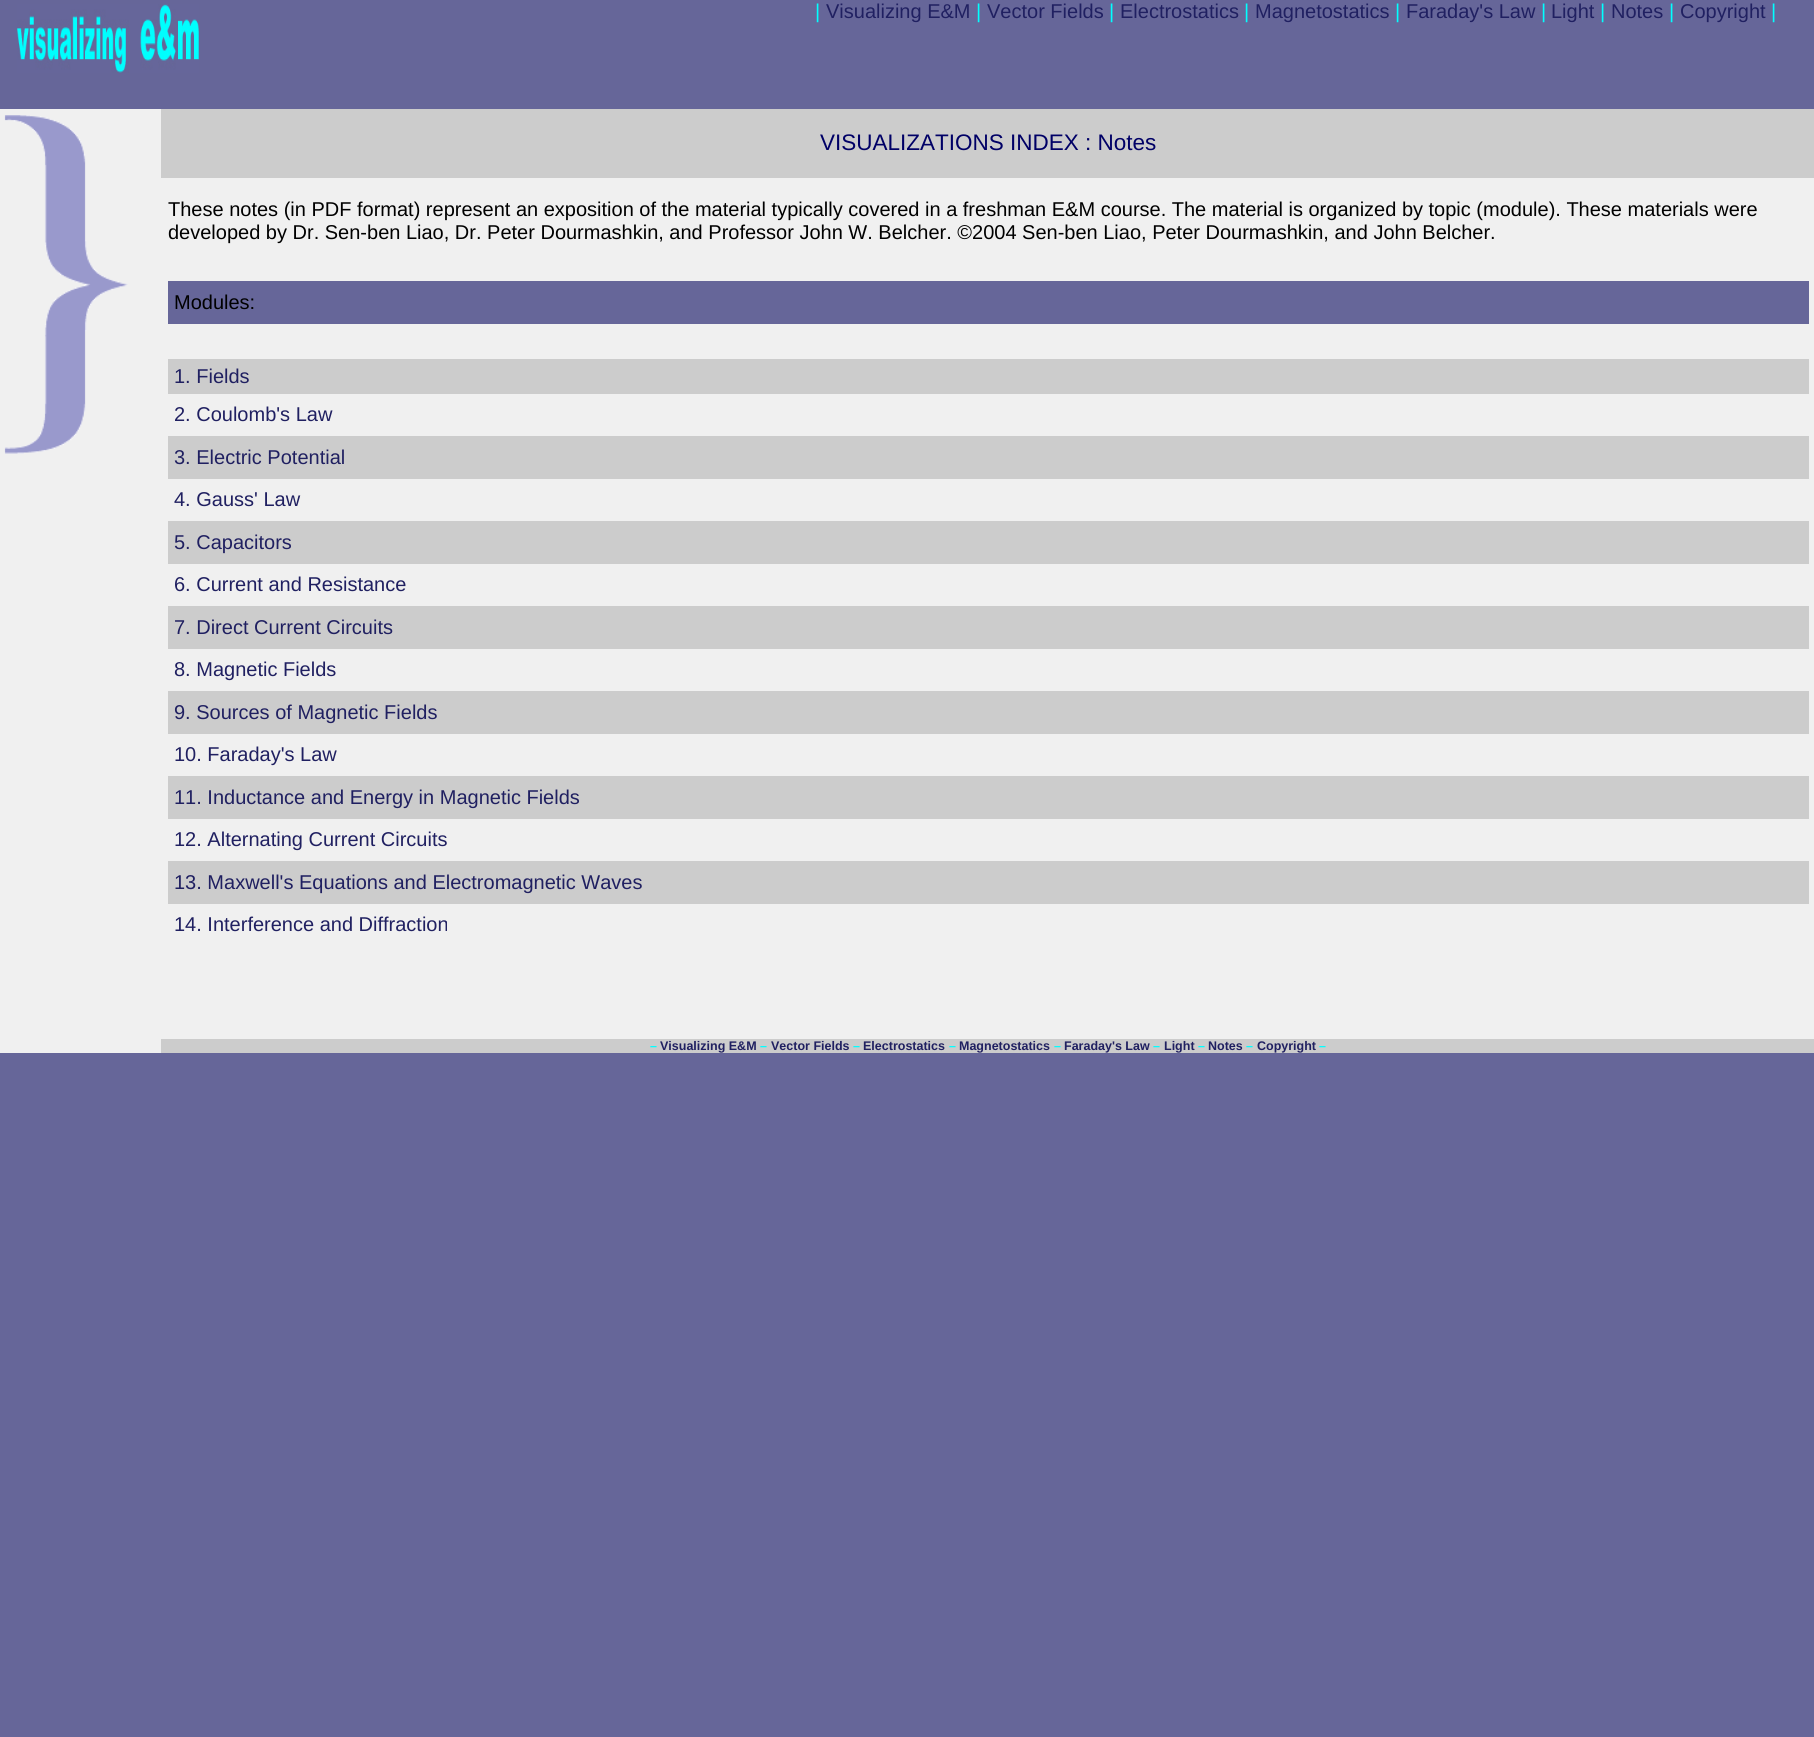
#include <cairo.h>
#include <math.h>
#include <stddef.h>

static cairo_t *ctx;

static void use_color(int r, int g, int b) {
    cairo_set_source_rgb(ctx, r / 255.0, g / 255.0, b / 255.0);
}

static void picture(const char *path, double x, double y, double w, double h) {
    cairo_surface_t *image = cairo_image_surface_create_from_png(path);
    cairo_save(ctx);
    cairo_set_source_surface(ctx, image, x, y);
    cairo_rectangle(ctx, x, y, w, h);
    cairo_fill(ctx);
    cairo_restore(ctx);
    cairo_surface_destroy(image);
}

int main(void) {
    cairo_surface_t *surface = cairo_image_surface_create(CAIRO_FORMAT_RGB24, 1814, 1737);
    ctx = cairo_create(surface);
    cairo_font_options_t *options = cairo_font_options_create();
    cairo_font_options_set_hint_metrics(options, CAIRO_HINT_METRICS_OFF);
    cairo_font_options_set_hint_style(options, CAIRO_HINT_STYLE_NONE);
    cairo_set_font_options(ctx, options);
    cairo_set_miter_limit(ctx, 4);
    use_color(102, 102, 153);
    cairo_paint(ctx);
    picture("img1.png", 17, 4, 182, 69);
    cairo_select_font_face(ctx, "Liberation Sans", CAIRO_FONT_SLANT_NORMAL, CAIRO_FONT_WEIGHT_NORMAL);
    cairo_set_font_size(ctx, 20);
    use_color(0, 255, 255);
    cairo_move_to(ctx, 815, 18);
    cairo_show_text(ctx, "|");
    use_color(32, 32, 97);
    cairo_move_to(ctx, 826, 18);
    cairo_show_text(ctx, "Visualizing E&M");
    use_color(0, 255, 255);
    cairo_move_to(ctx, 976, 18);
    cairo_show_text(ctx, "|");
    use_color(32, 32, 97);
    cairo_move_to(ctx, 987, 18);
    cairo_show_text(ctx, "Vector Fields");
    use_color(0, 255, 255);
    cairo_move_to(ctx, 1109, 18);
    cairo_show_text(ctx, "|");
    use_color(32, 32, 97);
    cairo_move_to(ctx, 1120, 18);
    cairo_show_text(ctx, "Electrostatics");
    use_color(0, 255, 255);
    cairo_move_to(ctx, 1244, 18);
    cairo_show_text(ctx, "|");
    use_color(32, 32, 97);
    cairo_move_to(ctx, 1255, 18);
    cairo_show_text(ctx, "Magnetostatics");
    use_color(0, 255, 255);
    cairo_move_to(ctx, 1395, 18);
    cairo_show_text(ctx, "|");
    use_color(32, 32, 97);
    cairo_move_to(ctx, 1406, 18);
    cairo_show_text(ctx, "Faraday's Law");
    use_color(0, 255, 255);
    cairo_move_to(ctx, 1541, 18);
    cairo_show_text(ctx, "|");
    use_color(32, 32, 97);
    cairo_move_to(ctx, 1551, 18);
    cairo_show_text(ctx, "Light");
    use_color(0, 255, 255);
    cairo_move_to(ctx, 1600, 18);
    cairo_show_text(ctx, "|");
    use_color(32, 32, 97);
    cairo_move_to(ctx, 1611, 18);
    cairo_show_text(ctx, "Notes");
    use_color(0, 255, 255);
    cairo_move_to(ctx, 1669, 18);
    cairo_show_text(ctx, "|");
    use_color(32, 32, 97);
    cairo_move_to(ctx, 1680, 18);
    cairo_show_text(ctx, "Copyright");
    use_color(0, 255, 255);
    cairo_move_to(ctx, 1771, 18);
    cairo_show_text(ctx, "|");
    use_color(240, 240, 240);
    cairo_rectangle(ctx, 0, 109, 1814, 944);
    cairo_fill(ctx);
    picture("img2.png", 4, 115, 124, 339);
    use_color(204, 204, 204);
    cairo_rectangle(ctx, 161, 109, 1653, 69);
    cairo_fill(ctx);
    cairo_set_font_size(ctx, 22.5);
    use_color(0, 0, 102);
    cairo_move_to(ctx, 820, 150);
    cairo_show_text(ctx, "VISUALIZATIONS INDEX : Notes");
    cairo_set_font_size(ctx, 20);
    use_color(0, 0, 0);
    cairo_move_to(ctx, 168, 216);
    cairo_show_text(ctx, "These notes (in PDF format) represent an exposition of the material typically covered in a freshman E&M course. The material is organized by topic (module). These materials were");
    cairo_move_to(ctx, 168, 239);
    cairo_show_text(ctx, "developed by Dr. Sen-ben Liao, Dr. Peter Dourmashkin, and Professor John W. Belcher. ©2004 Sen-ben Liao, Peter Dourmashkin, and John Belcher.");
    use_color(102, 102, 153);
    cairo_rectangle(ctx, 168, 281, 1641, 43);
    cairo_fill(ctx);
    use_color(0, 0, 0);
    cairo_move_to(ctx, 174, 309);
    cairo_show_text(ctx, "Modules:");
    use_color(204, 204, 204);
    cairo_rectangle(ctx, 168, 359, 1641, 35);
    cairo_fill(ctx);
    use_color(32, 32, 97);
    cairo_move_to(ctx, 174, 383);
    cairo_show_text(ctx, "1. Fields");
    cairo_move_to(ctx, 174, 421);
    cairo_show_text(ctx, "2. Coulomb's Law");
    use_color(204, 204, 204);
    cairo_rectangle(ctx, 168, 436, 1641, 43);
    cairo_fill(ctx);
    use_color(32, 32, 97);
    cairo_move_to(ctx, 174, 464);
    cairo_show_text(ctx, "3. Electric Potential");
    cairo_move_to(ctx, 174, 506);
    cairo_show_text(ctx, "4. Gauss' Law");
    use_color(204, 204, 204);
    cairo_rectangle(ctx, 168, 521, 1641, 43);
    cairo_fill(ctx);
    use_color(32, 32, 97);
    cairo_move_to(ctx, 174, 549);
    cairo_show_text(ctx, "5. Capacitors");
    cairo_move_to(ctx, 174, 591);
    cairo_show_text(ctx, "6. Current and Resistance");
    use_color(204, 204, 204);
    cairo_rectangle(ctx, 168, 606, 1641, 43);
    cairo_fill(ctx);
    use_color(32, 32, 97);
    cairo_move_to(ctx, 174, 634);
    cairo_show_text(ctx, "7. Direct Current Circuits");
    cairo_move_to(ctx, 174, 676);
    cairo_show_text(ctx, "8. Magnetic Fields");
    use_color(204, 204, 204);
    cairo_rectangle(ctx, 168, 691, 1641, 43);
    cairo_fill(ctx);
    use_color(32, 32, 97);
    cairo_move_to(ctx, 174, 719);
    cairo_show_text(ctx, "9. Sources of Magnetic Fields");
    cairo_move_to(ctx, 174, 761);
    cairo_show_text(ctx, "10. Faraday's Law");
    use_color(204, 204, 204);
    cairo_rectangle(ctx, 168, 776, 1641, 43);
    cairo_fill(ctx);
    use_color(32, 32, 97);
    cairo_move_to(ctx, 174, 804);
    cairo_show_text(ctx, "11. Inductance and Energy in Magnetic Fields");
    cairo_move_to(ctx, 174, 846);
    cairo_show_text(ctx, "12. Alternating Current Circuits");
    use_color(204, 204, 204);
    cairo_rectangle(ctx, 168, 861, 1641, 43);
    cairo_fill(ctx);
    use_color(32, 32, 97);
    cairo_move_to(ctx, 174, 889);
    cairo_show_text(ctx, "13. Maxwell's Equations and Electromagnetic Waves");
    cairo_move_to(ctx, 174, 931);
    cairo_show_text(ctx, "14. Interference and Diffraction");
    use_color(204, 204, 204);
    cairo_rectangle(ctx, 161, 1039, 1653, 14);
    cairo_fill(ctx);
    cairo_select_font_face(ctx, "Liberation Sans", CAIRO_FONT_SLANT_NORMAL, CAIRO_FONT_WEIGHT_BOLD);
    cairo_set_font_size(ctx, 12.5);
    use_color(0, 255, 255);
    cairo_move_to(ctx, 650, 1050);
    cairo_show_text(ctx, "–");
    use_color(32, 32, 97);
    cairo_move_to(ctx, 660, 1050);
    cairo_show_text(ctx, "Visualizing E&M");
    use_color(0, 255, 255);
    cairo_move_to(ctx, 760, 1050);
    cairo_show_text(ctx, "–");
    use_color(32, 32, 97);
    cairo_move_to(ctx, 771, 1050);
    cairo_show_text(ctx, "Vector Fields");
    use_color(0, 255, 255);
    cairo_move_to(ctx, 853, 1050);
    cairo_show_text(ctx, "–");
    use_color(32, 32, 97);
    cairo_move_to(ctx, 863, 1050);
    cairo_show_text(ctx, "Electrostatics");
    use_color(0, 255, 255);
    cairo_move_to(ctx, 949, 1050);
    cairo_show_text(ctx, "–");
    use_color(32, 32, 97);
    cairo_move_to(ctx, 959, 1050);
    cairo_show_text(ctx, "Magnetostatics");
    use_color(0, 255, 255);
    cairo_move_to(ctx, 1054, 1050);
    cairo_show_text(ctx, "–");
    use_color(32, 32, 97);
    cairo_move_to(ctx, 1064, 1050);
    cairo_show_text(ctx, "Faraday's Law");
    use_color(0, 255, 255);
    cairo_move_to(ctx, 1153, 1050);
    cairo_show_text(ctx, "–");
    use_color(32, 32, 97);
    cairo_move_to(ctx, 1164, 1050);
    cairo_show_text(ctx, "Light");
    use_color(0, 255, 255);
    cairo_move_to(ctx, 1198, 1050);
    cairo_show_text(ctx, "–");
    use_color(32, 32, 97);
    cairo_move_to(ctx, 1208, 1050);
    cairo_show_text(ctx, "Notes");
    use_color(0, 255, 255);
    cairo_move_to(ctx, 1246, 1050);
    cairo_show_text(ctx, "–");
    use_color(32, 32, 97);
    cairo_move_to(ctx, 1257, 1050);
    cairo_show_text(ctx, "Copyright");
    use_color(0, 255, 255);
    cairo_move_to(ctx, 1319, 1050);
    cairo_show_text(ctx, "–");
    cairo_surface_write_to_png(surface, "result.png");
    cairo_font_options_destroy(options);
    cairo_destroy(ctx);
    cairo_surface_destroy(surface);
    return 0;
}
